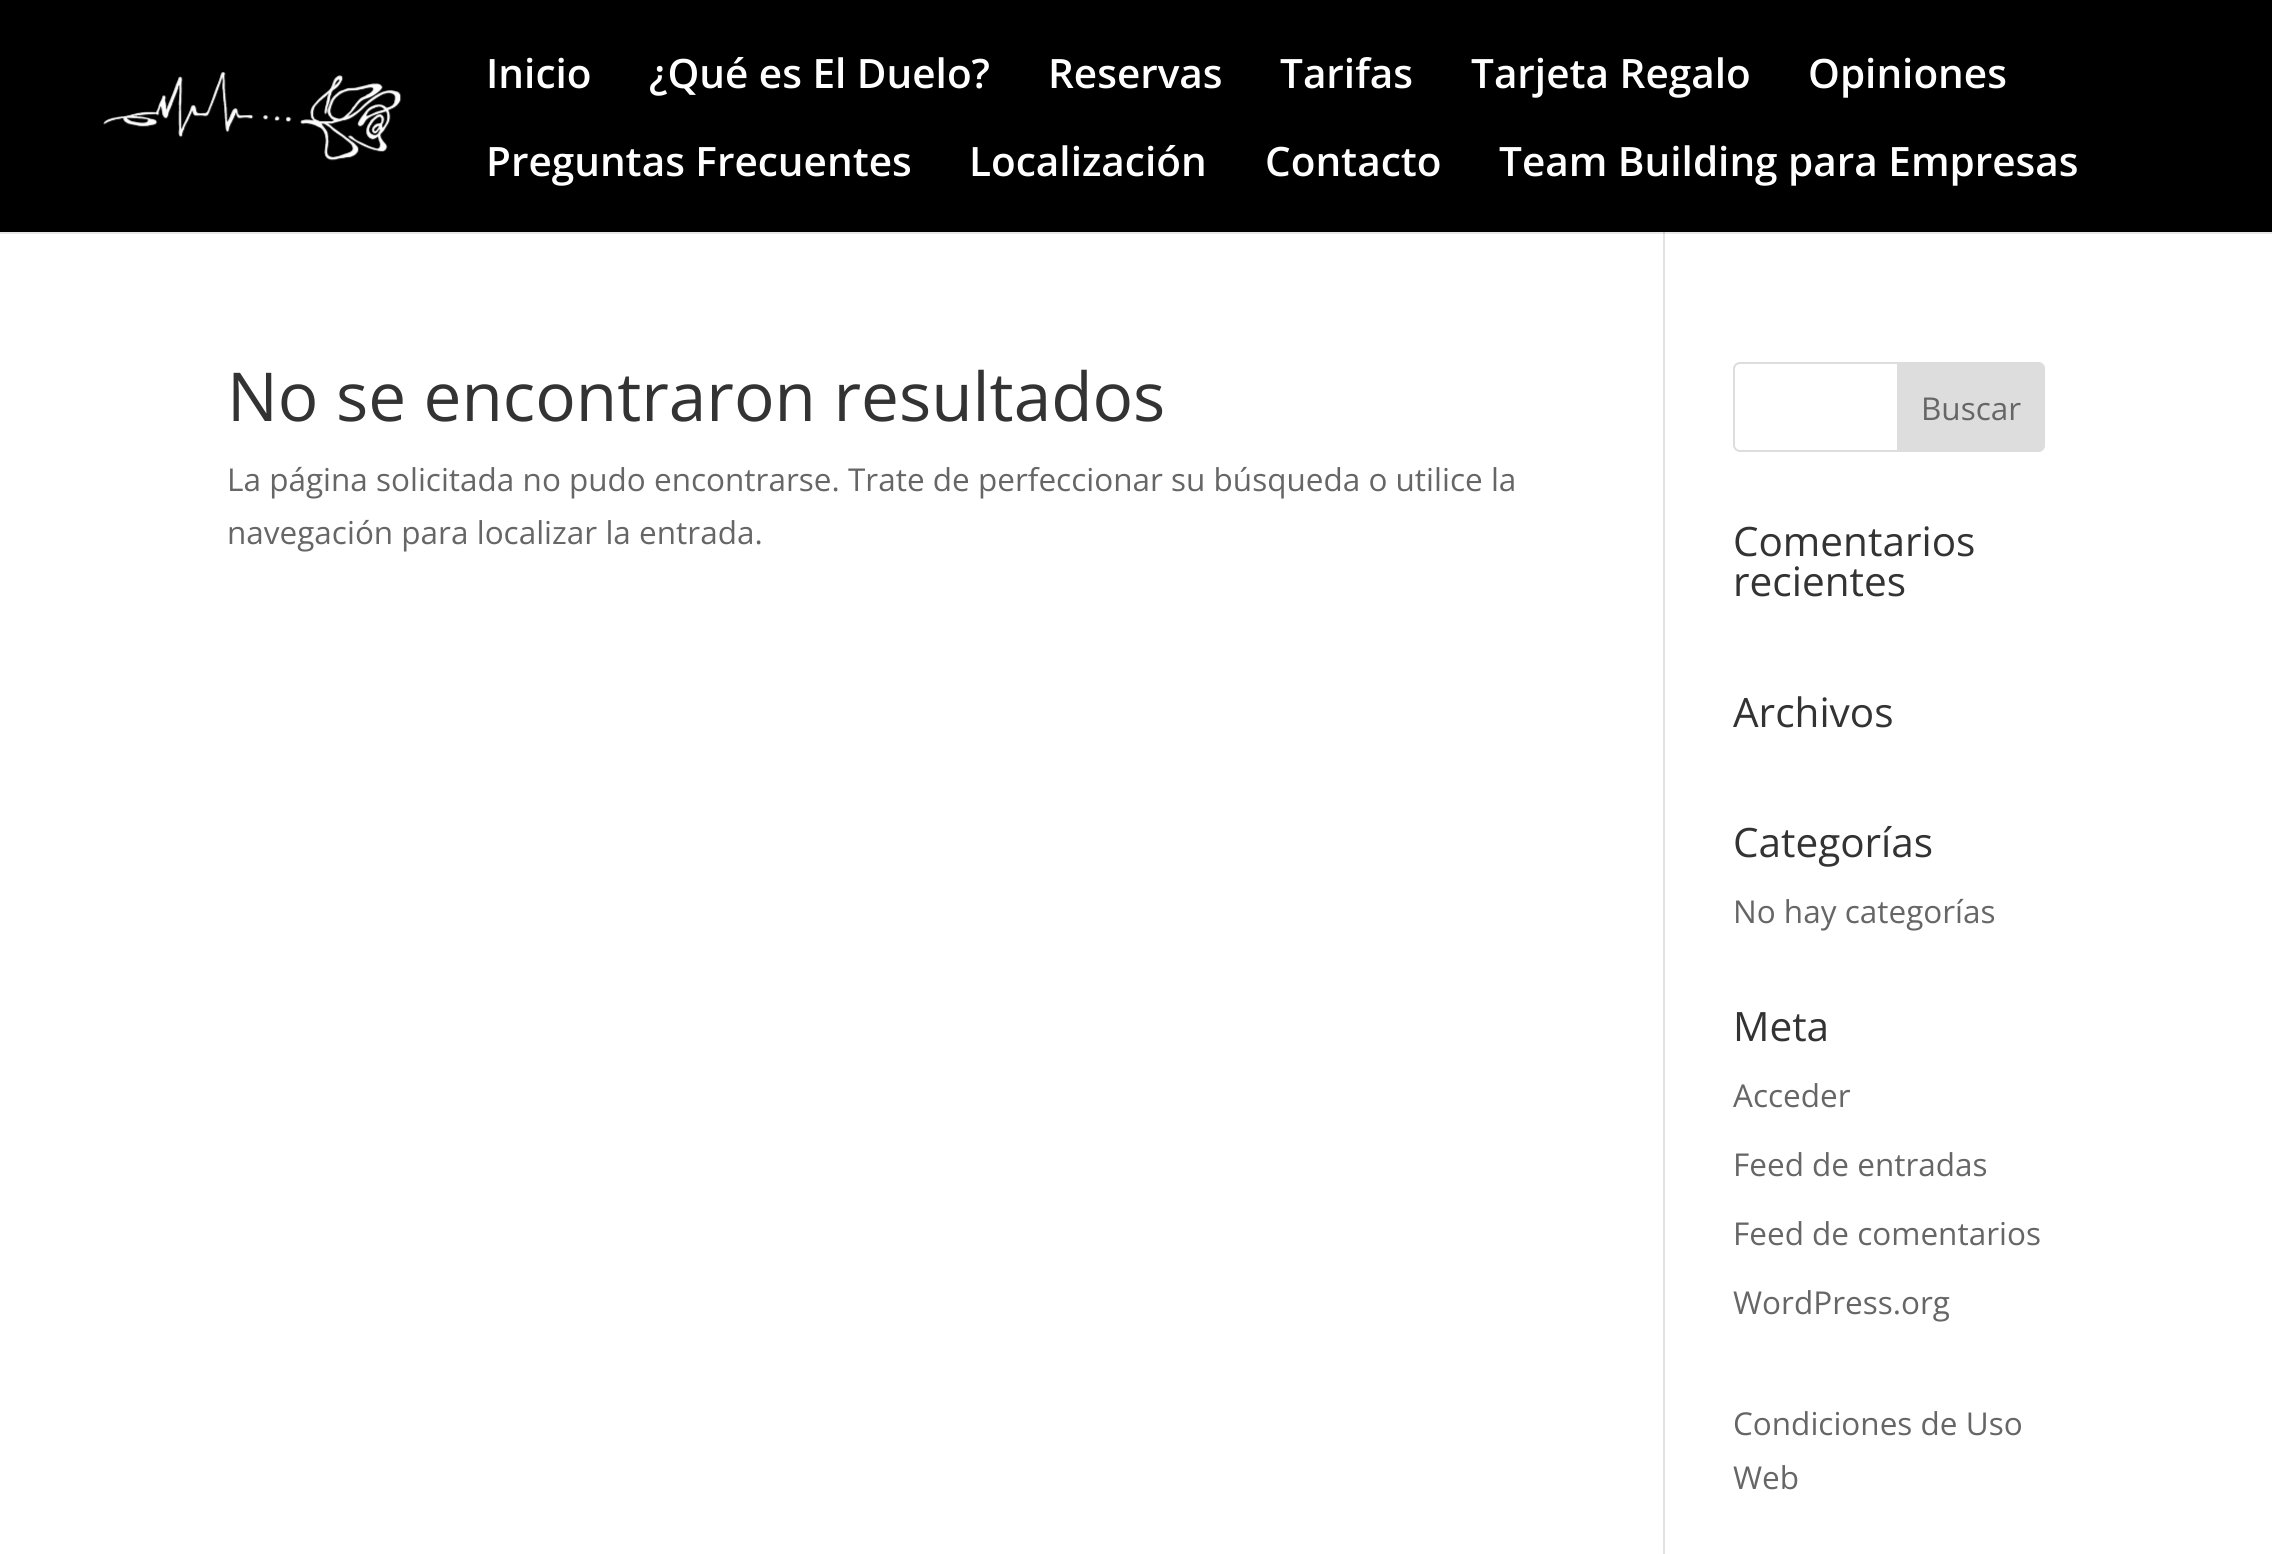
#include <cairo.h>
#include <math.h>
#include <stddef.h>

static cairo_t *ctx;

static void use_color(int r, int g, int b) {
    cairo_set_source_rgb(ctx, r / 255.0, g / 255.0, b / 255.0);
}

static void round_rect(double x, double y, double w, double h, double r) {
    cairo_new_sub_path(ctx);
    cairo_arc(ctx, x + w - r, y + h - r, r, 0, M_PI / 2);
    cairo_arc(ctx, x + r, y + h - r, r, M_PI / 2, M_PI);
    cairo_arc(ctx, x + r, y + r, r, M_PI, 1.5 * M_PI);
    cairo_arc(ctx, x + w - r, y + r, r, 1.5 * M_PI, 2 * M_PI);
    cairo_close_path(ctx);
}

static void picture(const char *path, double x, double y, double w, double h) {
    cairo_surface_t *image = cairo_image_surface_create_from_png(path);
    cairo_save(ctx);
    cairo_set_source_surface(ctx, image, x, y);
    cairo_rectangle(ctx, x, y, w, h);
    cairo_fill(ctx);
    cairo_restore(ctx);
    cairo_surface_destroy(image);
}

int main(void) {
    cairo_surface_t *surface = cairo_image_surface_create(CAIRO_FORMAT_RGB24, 2272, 1554);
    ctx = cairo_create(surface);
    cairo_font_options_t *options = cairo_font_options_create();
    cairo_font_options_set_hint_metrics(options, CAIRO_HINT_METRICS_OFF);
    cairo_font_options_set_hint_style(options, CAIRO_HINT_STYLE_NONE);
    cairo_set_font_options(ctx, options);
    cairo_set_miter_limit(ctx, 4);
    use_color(255, 255, 255);
    cairo_paint(ctx);
    use_color(226, 226, 226);
    cairo_rectangle(ctx, 1663, 232, 2, 1322);
    cairo_fill(ctx);
    cairo_set_source_rgba(ctx, 0, 0, 0, 0.1);
    cairo_new_path(ctx);
    cairo_move_to(ctx, 0, 232);
    cairo_line_to(ctx, 0, 234);
    cairo_line_to(ctx, 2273, 234);
    cairo_line_to(ctx, 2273, 2);
    cairo_line_to(ctx, 2272, 2);
    cairo_line_to(ctx, 2272, 232);
    cairo_close_path(ctx);
    cairo_fill(ctx);
    use_color(0, 0, 0);
    cairo_rectangle(ctx, 0, 0, 2272, 232);
    cairo_fill(ctx);
    picture("img1.png", 103, 72, 299, 89);
    cairo_select_font_face(ctx, "Open Sans SemiBold", CAIRO_FONT_SLANT_NORMAL, CAIRO_FONT_WEIGHT_NORMAL);
    cairo_set_font_size(ctx, 40.5);
    use_color(255, 255, 255);
    cairo_move_to(ctx, 486, 88);
    cairo_show_text(ctx, "Inicio");
    cairo_move_to(ctx, 649, 88);
    cairo_show_text(ctx, "¿Qué es El Duelo?");
    cairo_move_to(ctx, 1048, 88);
    cairo_show_text(ctx, "Reservas");
    cairo_move_to(ctx, 1280, 88);
    cairo_show_text(ctx, "Tarifas");
    cairo_move_to(ctx, 1471, 88);
    cairo_show_text(ctx, "Tarjeta Regalo");
    cairo_move_to(ctx, 1808, 88);
    cairo_show_text(ctx, "Opiniones");
    cairo_move_to(ctx, 486, 176);
    cairo_show_text(ctx, "Preguntas Frecuentes");
    cairo_move_to(ctx, 969, 176);
    cairo_show_text(ctx, "Localización");
    cairo_move_to(ctx, 1265, 176);
    cairo_show_text(ctx, "Contacto");
    cairo_move_to(ctx, 1499, 176);
    cairo_show_text(ctx, "Team Building para Empresas");
    cairo_select_font_face(ctx, "Open Sans", CAIRO_FONT_SLANT_NORMAL, CAIRO_FONT_WEIGHT_NORMAL);
    cairo_set_font_size(ctx, 67.5);
    use_color(51, 51, 51);
    cairo_move_to(ctx, 227, 421);
    cairo_show_text(ctx, "No se encontraron resultados");
    cairo_set_font_size(ctx, 31.5);
    use_color(102, 102, 102);
    cairo_move_to(ctx, 227, 491);
    cairo_show_text(ctx, "La página solicitada no pudo encontrarse. Trate de perfeccionar su búsqueda o utilice la");
    cairo_move_to(ctx, 227, 544);
    cairo_show_text(ctx, "navegación para localizar la entrada.");
    round_rect(1734, 363, 310, 88, 6);
    use_color(221, 221, 221);
    cairo_stroke(ctx);
    cairo_new_path(ctx);
    cairo_move_to(ctx, 1898, 363);
    cairo_line_to(ctx, 2038, 363);
    cairo_curve_to(ctx, 2041.5, 363, 2044, 365.5, 2044, 369);
    cairo_line_to(ctx, 2044, 445);
    cairo_curve_to(ctx, 2044, 448.5, 2041.5, 451, 2038, 451);
    cairo_line_to(ctx, 1898, 451);
    cairo_close_path(ctx);
    cairo_fill_preserve(ctx);
    cairo_stroke(ctx);
    use_color(102, 102, 102);
    cairo_move_to(ctx, 1921, 420);
    cairo_show_text(ctx, "Buscar");
    cairo_set_font_size(ctx, 40.5);
    use_color(51, 51, 51);
    cairo_move_to(ctx, 1733, 556);
    cairo_show_text(ctx, "Comentarios");
    cairo_move_to(ctx, 1733, 596);
    cairo_show_text(ctx, "recientes");
    cairo_move_to(ctx, 1733, 727);
    cairo_show_text(ctx, "Archivos");
    cairo_move_to(ctx, 1733, 857);
    cairo_show_text(ctx, "Categorías");
    cairo_set_font_size(ctx, 31.5);
    use_color(102, 102, 102);
    cairo_move_to(ctx, 1733, 923);
    cairo_show_text(ctx, "No hay categorías");
    cairo_set_font_size(ctx, 40.5);
    use_color(51, 51, 51);
    cairo_move_to(ctx, 1733, 1041);
    cairo_show_text(ctx, "Meta");
    cairo_set_font_size(ctx, 31.5);
    use_color(102, 102, 102);
    cairo_move_to(ctx, 1733, 1107);
    cairo_show_text(ctx, "Acceder");
    cairo_move_to(ctx, 1733, 1176);
    cairo_show_text(ctx, "Feed de entradas");
    cairo_move_to(ctx, 1733, 1245);
    cairo_show_text(ctx, "Feed de comentarios");
    cairo_move_to(ctx, 1733, 1314);
    cairo_show_text(ctx, "WordPress.org");
    cairo_move_to(ctx, 1733, 1435);
    cairo_show_text(ctx, "Condiciones de Uso");
    cairo_move_to(ctx, 1733, 1489);
    cairo_show_text(ctx, "Web");
    cairo_surface_write_to_png(surface, "result.png");
    cairo_font_options_destroy(options);
    cairo_destroy(ctx);
    cairo_surface_destroy(surface);
    return 0;
}
